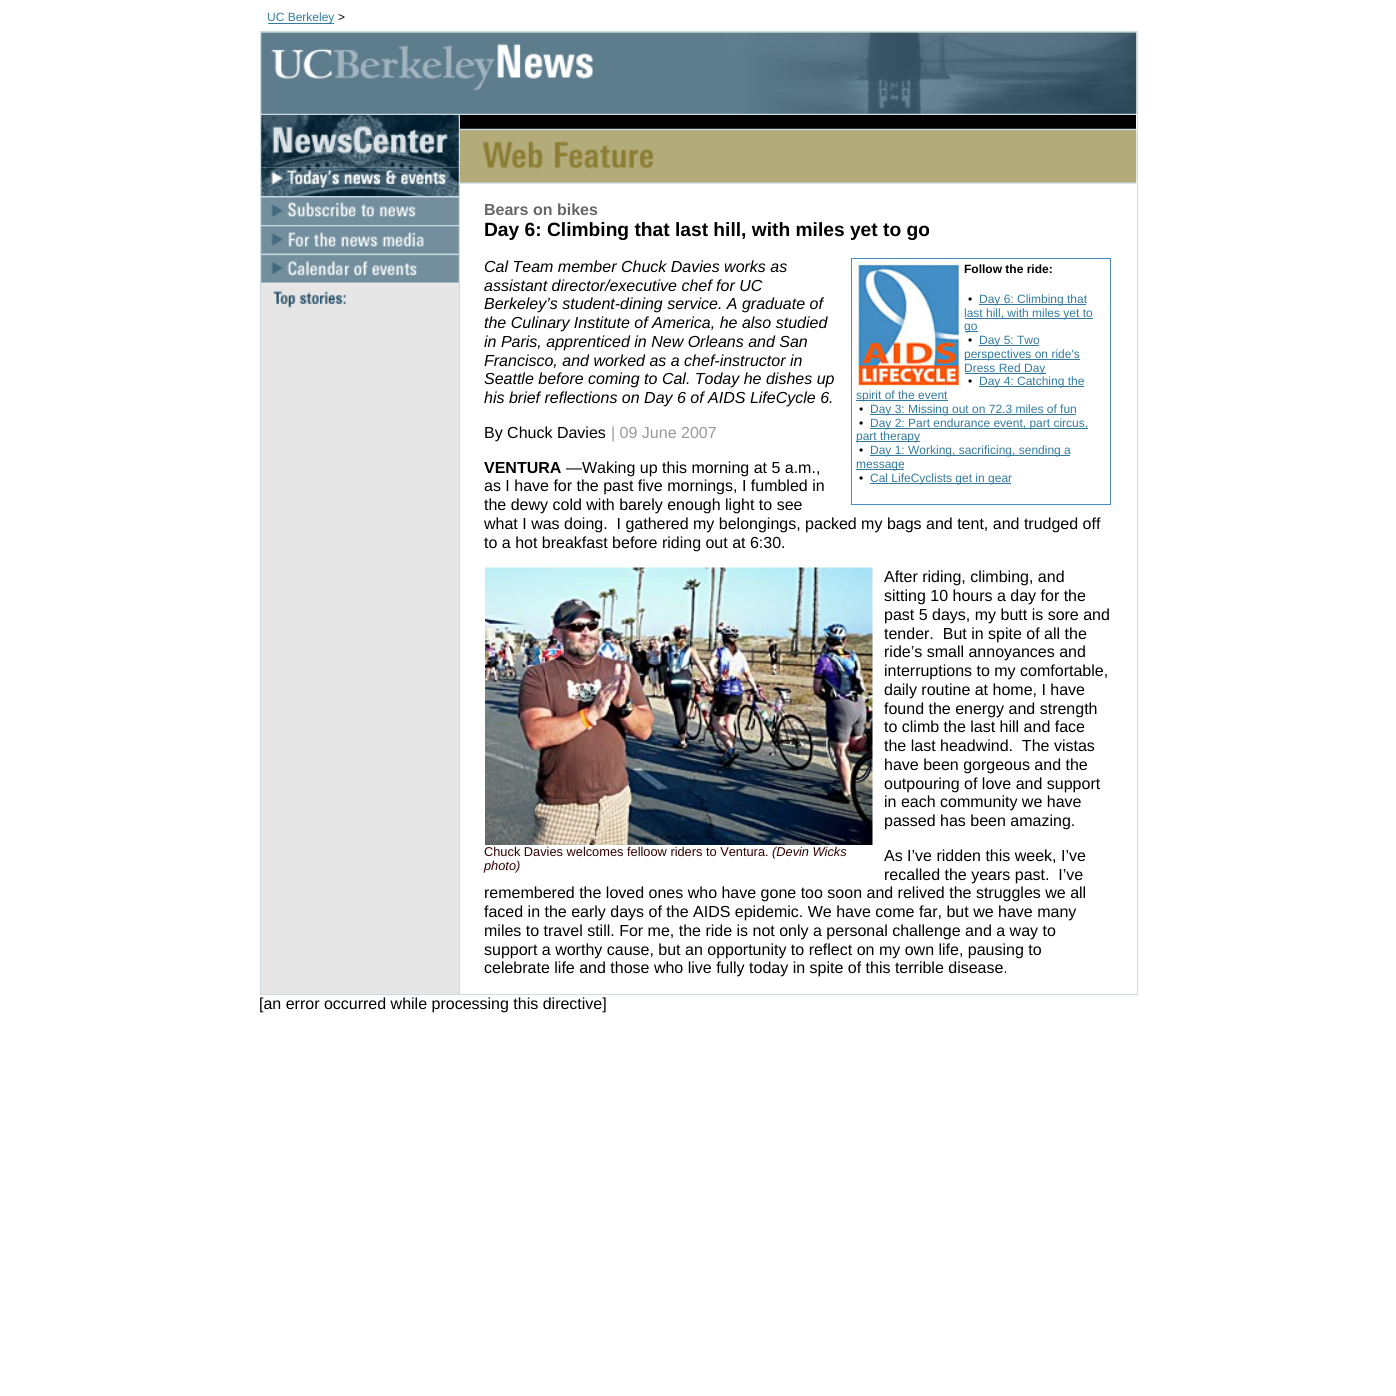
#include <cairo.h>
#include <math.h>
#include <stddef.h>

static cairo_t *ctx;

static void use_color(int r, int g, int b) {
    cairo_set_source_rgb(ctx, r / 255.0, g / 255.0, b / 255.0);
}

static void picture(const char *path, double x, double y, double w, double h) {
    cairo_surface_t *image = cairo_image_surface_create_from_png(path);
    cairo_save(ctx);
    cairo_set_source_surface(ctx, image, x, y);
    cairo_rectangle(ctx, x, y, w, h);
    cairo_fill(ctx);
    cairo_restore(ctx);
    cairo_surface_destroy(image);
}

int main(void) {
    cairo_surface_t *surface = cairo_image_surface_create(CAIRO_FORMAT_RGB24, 1396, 1396);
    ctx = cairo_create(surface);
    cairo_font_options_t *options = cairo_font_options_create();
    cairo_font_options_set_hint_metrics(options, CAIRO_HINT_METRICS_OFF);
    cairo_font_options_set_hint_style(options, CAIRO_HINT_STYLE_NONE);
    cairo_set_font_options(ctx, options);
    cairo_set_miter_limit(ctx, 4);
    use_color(255, 255, 255);
    cairo_paint(ctx);
    use_color(52, 122, 158);
    cairo_rectangle(ctx, 268, 23, 66, 1);
    cairo_fill(ctx);
    cairo_select_font_face(ctx, "Liberation Sans", CAIRO_FONT_SLANT_NORMAL, CAIRO_FONT_WEIGHT_NORMAL);
    cairo_set_font_size(ctx, 12);
    cairo_move_to(ctx, 267, 21);
    cairo_show_text(ctx, "UC Berkeley");
    use_color(0, 0, 0);
    cairo_move_to(ctx, 338, 21);
    cairo_show_text(ctx, ">");
    cairo_rectangle(ctx, 260.5, 31.5, 877, 963);
    use_color(204, 219, 227);
    cairo_set_line_width(ctx, 1);
    cairo_stroke(ctx);
    picture("img1.png", 261, 32, 876, 83);
    use_color(230, 230, 230);
    cairo_rectangle(ctx, 261, 115, 198, 879);
    cairo_fill(ctx);
    use_color(204, 219, 227);
    cairo_rectangle(ctx, 459, 115, 1, 879);
    cairo_fill(ctx);
    picture("img2.png", 261, 115, 198, 53);
    picture("img3.png", 261, 167, 198, 30);
    picture("img4.png", 261, 196, 198, 29);
    picture("img5.png", 261, 225, 198, 29);
    picture("img6.png", 261, 253, 198, 30);
    picture("img7.png", 273, 291, 74, 17);
    use_color(0, 0, 0);
    cairo_rectangle(ctx, 460, 115, 676, 14);
    cairo_fill(ctx);
    picture("img8.png", 460, 128, 677, 56);
    cairo_select_font_face(ctx, "Liberation Sans", CAIRO_FONT_SLANT_NORMAL, CAIRO_FONT_WEIGHT_BOLD);
    cairo_set_font_size(ctx, 16);
    use_color(102, 102, 102);
    cairo_move_to(ctx, 484, 215);
    cairo_show_text(ctx, "Bears on bikes");
    cairo_set_font_size(ctx, 19.2);
    use_color(0, 0, 0);
    cairo_move_to(ctx, 484, 236);
    cairo_show_text(ctx, "Day 6: Climbing that last hill, with miles yet to go");
    cairo_select_font_face(ctx, "Liberation Sans", CAIRO_FONT_SLANT_ITALIC, CAIRO_FONT_WEIGHT_NORMAL);
    cairo_set_font_size(ctx, 16);
    cairo_move_to(ctx, 484, 272);
    cairo_show_text(ctx, "Cal Team member Chuck Davies works as");
    cairo_rectangle(ctx, 851.5, 258.5, 259, 246);
    use_color(67, 142, 199);
    cairo_stroke(ctx);
    picture("img9.png", 856, 262, 106, 126);
    cairo_select_font_face(ctx, "Liberation Sans", CAIRO_FONT_SLANT_NORMAL, CAIRO_FONT_WEIGHT_BOLD);
    cairo_set_font_size(ctx, 12);
    use_color(0, 0, 0);
    cairo_move_to(ctx, 964, 273);
    cairo_show_text(ctx, "Follow the ride:");
    cairo_select_font_face(ctx, "Liberation Sans", CAIRO_FONT_SLANT_NORMAL, CAIRO_FONT_WEIGHT_NORMAL);
    cairo_move_to(ctx, 968, 303);
    cairo_show_text(ctx, "•");
    use_color(52, 122, 158);
    cairo_rectangle(ctx, 979, 304, 107, 1);
    cairo_fill(ctx);
    cairo_move_to(ctx, 979, 303);
    cairo_show_text(ctx, "Day 6: Climbing that");
    cairo_rectangle(ctx, 965, 318, 128, 1);
    cairo_fill(ctx);
    cairo_move_to(ctx, 964, 317);
    cairo_show_text(ctx, "last hill, with miles yet to");
    cairo_rectangle(ctx, 965, 331, 13, 1);
    cairo_fill(ctx);
    cairo_move_to(ctx, 964, 330);
    cairo_show_text(ctx, "go");
    use_color(0, 0, 0);
    cairo_move_to(ctx, 968, 344);
    cairo_show_text(ctx, "•");
    use_color(52, 122, 158);
    cairo_rectangle(ctx, 979, 345, 60, 1);
    cairo_fill(ctx);
    cairo_move_to(ctx, 979, 344);
    cairo_show_text(ctx, "Day 5: Two");
    cairo_rectangle(ctx, 965, 359, 115, 1);
    cairo_fill(ctx);
    cairo_move_to(ctx, 964, 358);
    cairo_show_text(ctx, "perspectives on ride's");
    cairo_rectangle(ctx, 965, 373, 81, 1);
    cairo_fill(ctx);
    cairo_move_to(ctx, 964, 372);
    cairo_show_text(ctx, "Dress Red Day");
    use_color(0, 0, 0);
    cairo_move_to(ctx, 968, 385);
    cairo_show_text(ctx, "•");
    use_color(52, 122, 158);
    cairo_rectangle(ctx, 979, 386, 105, 1);
    cairo_fill(ctx);
    cairo_move_to(ctx, 979, 385);
    cairo_show_text(ctx, "Day 4: Catching the");
    cairo_rectangle(ctx, 856, 400, 92, 1);
    cairo_fill(ctx);
    cairo_move_to(ctx, 856, 399);
    cairo_show_text(ctx, "spirit of the event");
    use_color(0, 0, 0);
    cairo_move_to(ctx, 859, 413);
    cairo_show_text(ctx, "•");
    use_color(52, 122, 158);
    cairo_rectangle(ctx, 870, 414, 206, 1);
    cairo_fill(ctx);
    cairo_move_to(ctx, 870, 413);
    cairo_show_text(ctx, "Day 3: Missing out on 72.3 miles of fun");
    use_color(0, 0, 0);
    cairo_move_to(ctx, 859, 427);
    cairo_show_text(ctx, "•");
    use_color(52, 122, 158);
    cairo_rectangle(ctx, 870, 428, 218, 1);
    cairo_fill(ctx);
    cairo_move_to(ctx, 870, 427);
    cairo_show_text(ctx, "Day 2: Part endurance event, part circus,");
    cairo_rectangle(ctx, 856, 441, 64, 1);
    cairo_fill(ctx);
    cairo_move_to(ctx, 856, 440);
    cairo_show_text(ctx, "part therapy");
    use_color(0, 0, 0);
    cairo_move_to(ctx, 859, 454);
    cairo_show_text(ctx, "•");
    use_color(52, 122, 158);
    cairo_rectangle(ctx, 870, 455, 200, 1);
    cairo_fill(ctx);
    cairo_move_to(ctx, 870, 454);
    cairo_show_text(ctx, "Day 1: Working, sacrificing, sending a");
    cairo_rectangle(ctx, 856, 469, 48, 1);
    cairo_fill(ctx);
    cairo_move_to(ctx, 856, 468);
    cairo_show_text(ctx, "message");
    use_color(0, 0, 0);
    cairo_move_to(ctx, 859, 482);
    cairo_show_text(ctx, "•");
    use_color(52, 122, 158);
    cairo_rectangle(ctx, 870, 483, 141, 1);
    cairo_fill(ctx);
    cairo_move_to(ctx, 870, 482);
    cairo_show_text(ctx, "Cal LifeCyclists get in gear");
    cairo_select_font_face(ctx, "Liberation Sans", CAIRO_FONT_SLANT_ITALIC, CAIRO_FONT_WEIGHT_NORMAL);
    cairo_set_font_size(ctx, 16);
    use_color(0, 0, 0);
    cairo_move_to(ctx, 484, 291);
    cairo_show_text(ctx, "assistant director/executive chef for UC");
    cairo_move_to(ctx, 484, 309);
    cairo_show_text(ctx, "Berkeley’s student-dining service. A graduate of");
    cairo_move_to(ctx, 484, 328);
    cairo_show_text(ctx, "the Culinary Institute of America, he also studied");
    cairo_move_to(ctx, 484, 347);
    cairo_show_text(ctx, "in Paris, apprenticed in New Orleans and San");
    cairo_move_to(ctx, 484, 366);
    cairo_show_text(ctx, "Francisco, and worked as a chef-instructor in");
    cairo_move_to(ctx, 484, 384);
    cairo_show_text(ctx, "Seattle before coming to Cal. Today he dishes up");
    cairo_move_to(ctx, 484, 403);
    cairo_show_text(ctx, "his brief reflections on Day 6 of AIDS LifeCycle 6.");
    cairo_select_font_face(ctx, "Liberation Sans", CAIRO_FONT_SLANT_NORMAL, CAIRO_FONT_WEIGHT_NORMAL);
    cairo_move_to(ctx, 484, 438);
    cairo_show_text(ctx, "By Chuck Davies");
    use_color(153, 153, 153);
    cairo_move_to(ctx, 611, 438);
    cairo_show_text(ctx, "| 09 June 2007");
    cairo_select_font_face(ctx, "Liberation Sans", CAIRO_FONT_SLANT_NORMAL, CAIRO_FONT_WEIGHT_BOLD);
    use_color(0, 0, 0);
    cairo_move_to(ctx, 484, 473);
    cairo_show_text(ctx, "VENTURA");
    cairo_select_font_face(ctx, "Liberation Sans", CAIRO_FONT_SLANT_NORMAL, CAIRO_FONT_WEIGHT_NORMAL);
    cairo_move_to(ctx, 566, 473);
    cairo_show_text(ctx, "—Waking up this morning at 5 a.m.,");
    cairo_move_to(ctx, 484, 491);
    cairo_show_text(ctx, "as I have for the past five mornings, I fumbled in");
    cairo_move_to(ctx, 484, 510);
    cairo_show_text(ctx, "the dewy cold with barely enough light to see");
    cairo_move_to(ctx, 484, 529);
    cairo_show_text(ctx, "what I was doing.  I gathered my belongings, packed my bags and tent, and trudged off");
    cairo_move_to(ctx, 484, 548);
    cairo_show_text(ctx, "to a hot breakfast before riding out at 6:30.");
    cairo_move_to(ctx, 884, 582);
    cairo_show_text(ctx, "After riding, climbing, and");
    cairo_move_to(ctx, 884, 601);
    cairo_show_text(ctx, "sitting 10 hours a day for the");
    cairo_move_to(ctx, 884, 620);
    cairo_show_text(ctx, "past 5 days, my butt is sore and");
    cairo_move_to(ctx, 884, 639);
    cairo_show_text(ctx, "tender.  But in spite of all the");
    cairo_move_to(ctx, 884, 657);
    cairo_show_text(ctx, "ride’s small annoyances and");
    cairo_move_to(ctx, 884, 676);
    cairo_show_text(ctx, "interruptions to my comfortable,");
    cairo_move_to(ctx, 884, 695);
    cairo_show_text(ctx, "daily routine at home, I have");
    cairo_move_to(ctx, 884, 714);
    cairo_show_text(ctx, "found the energy and strength");
    cairo_move_to(ctx, 884, 732);
    cairo_show_text(ctx, "to climb the last hill and face");
    cairo_move_to(ctx, 884, 751);
    cairo_show_text(ctx, "the last headwind.  The vistas");
    cairo_move_to(ctx, 884, 770);
    cairo_show_text(ctx, "have been gorgeous and the");
    cairo_move_to(ctx, 884, 789);
    cairo_show_text(ctx, "outpouring of love and support");
    cairo_move_to(ctx, 884, 807);
    cairo_show_text(ctx, "in each community we have");
    cairo_move_to(ctx, 884, 826);
    cairo_show_text(ctx, "passed has been amazing.");
    picture("img10.png", 485, 567, 388, 278);
    cairo_set_font_size(ctx, 12.8);
    use_color(51, 0, 0);
    cairo_move_to(ctx, 484, 856);
    cairo_show_text(ctx, "Chuck Davies welcomes felloow riders to Ventura.");
    cairo_select_font_face(ctx, "Liberation Sans", CAIRO_FONT_SLANT_ITALIC, CAIRO_FONT_WEIGHT_NORMAL);
    cairo_move_to(ctx, 772, 856);
    cairo_show_text(ctx, "(Devin Wicks");
    cairo_move_to(ctx, 484, 870);
    cairo_show_text(ctx, "photo)");
    cairo_select_font_face(ctx, "Liberation Sans", CAIRO_FONT_SLANT_NORMAL, CAIRO_FONT_WEIGHT_NORMAL);
    cairo_set_font_size(ctx, 16);
    use_color(0, 0, 0);
    cairo_move_to(ctx, 884, 861);
    cairo_show_text(ctx, "As I’ve ridden this week, I’ve");
    cairo_move_to(ctx, 884, 880);
    cairo_show_text(ctx, "recalled the years past.  I’ve");
    cairo_move_to(ctx, 484, 898);
    cairo_show_text(ctx, "remembered the loved ones who have gone too soon and relived the struggles we all");
    cairo_move_to(ctx, 484, 917);
    cairo_show_text(ctx, "faced in the early days of the AIDS epidemic. We have come far, but we have many");
    cairo_move_to(ctx, 484, 936);
    cairo_show_text(ctx, "miles to travel still. For me, the ride is not only a personal challenge and a way to");
    cairo_move_to(ctx, 484, 955);
    cairo_show_text(ctx, "support a worthy cause, but an opportunity to reflect on my own life, pausing to");
    cairo_move_to(ctx, 484, 973);
    cairo_show_text(ctx, "celebrate life and those who live fully today in spite of this terrible disease.");
    cairo_move_to(ctx, 259, 1009);
    cairo_show_text(ctx, "[an error occurred while processing this directive]");
    cairo_surface_write_to_png(surface, "result.png");
    cairo_font_options_destroy(options);
    cairo_destroy(ctx);
    cairo_surface_destroy(surface);
    return 0;
}
